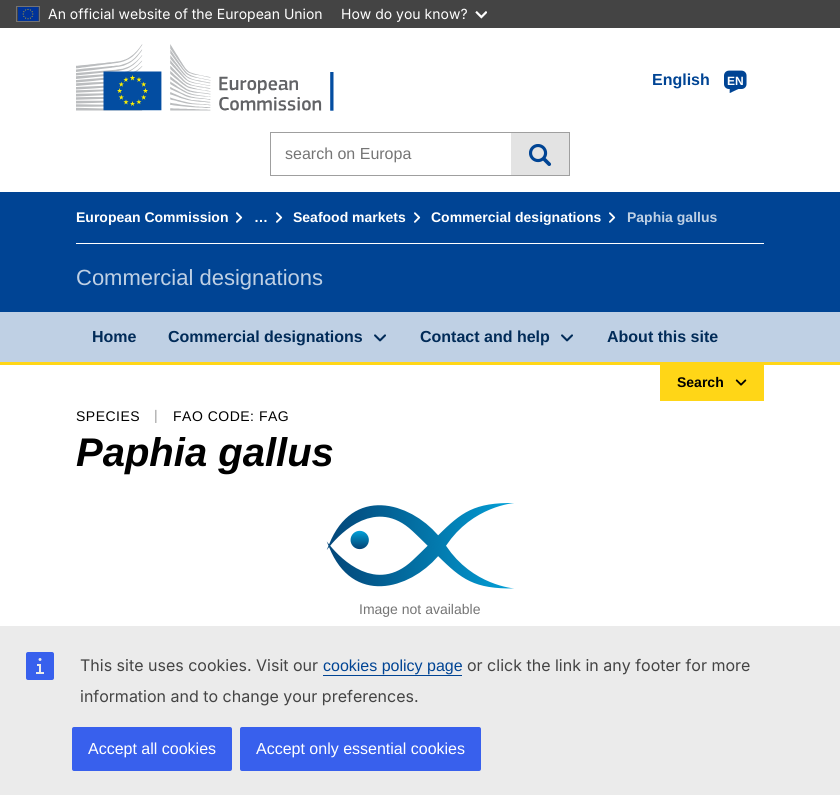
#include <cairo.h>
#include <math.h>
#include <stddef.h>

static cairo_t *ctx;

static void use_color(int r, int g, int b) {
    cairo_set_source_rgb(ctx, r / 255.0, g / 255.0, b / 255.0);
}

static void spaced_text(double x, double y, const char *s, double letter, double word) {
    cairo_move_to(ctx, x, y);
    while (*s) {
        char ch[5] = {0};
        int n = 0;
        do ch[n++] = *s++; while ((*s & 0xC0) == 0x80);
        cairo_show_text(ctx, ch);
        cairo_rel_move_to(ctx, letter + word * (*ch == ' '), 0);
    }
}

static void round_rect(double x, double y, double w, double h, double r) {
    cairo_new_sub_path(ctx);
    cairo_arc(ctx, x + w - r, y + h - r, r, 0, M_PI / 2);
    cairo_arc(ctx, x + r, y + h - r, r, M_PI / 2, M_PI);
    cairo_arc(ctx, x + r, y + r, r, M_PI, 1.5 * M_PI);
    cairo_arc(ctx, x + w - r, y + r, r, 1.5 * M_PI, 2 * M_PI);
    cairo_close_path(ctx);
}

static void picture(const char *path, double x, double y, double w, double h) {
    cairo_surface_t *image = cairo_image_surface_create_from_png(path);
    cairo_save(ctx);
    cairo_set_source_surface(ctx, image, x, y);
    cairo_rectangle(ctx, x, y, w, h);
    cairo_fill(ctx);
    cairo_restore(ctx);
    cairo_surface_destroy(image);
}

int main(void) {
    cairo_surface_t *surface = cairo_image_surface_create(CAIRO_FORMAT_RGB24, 840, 795);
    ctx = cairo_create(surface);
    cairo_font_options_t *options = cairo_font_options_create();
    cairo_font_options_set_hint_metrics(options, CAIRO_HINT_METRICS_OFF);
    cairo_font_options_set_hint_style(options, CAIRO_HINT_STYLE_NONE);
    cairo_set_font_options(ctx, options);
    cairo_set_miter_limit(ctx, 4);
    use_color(255, 255, 255);
    cairo_paint(ctx);
    use_color(68, 68, 68);
    cairo_rectangle(ctx, 0, 0, 840, 28);
    cairo_fill(ctx);
    cairo_rectangle(ctx, 16.5, 6.5, 23, 15);
    use_color(115, 115, 115);
    cairo_set_line_width(ctx, 1);
    cairo_stroke(ctx);
    picture("img1.png", 18, 7, 21, 14);
    cairo_select_font_face(ctx, "Inter", CAIRO_FONT_SLANT_NORMAL, CAIRO_FONT_WEIGHT_NORMAL);
    cairo_set_font_size(ctx, 14);
    use_color(255, 255, 255);
    cairo_move_to(ctx, 48, 19);
    cairo_show_text(ctx, "An official website of the European Union");
    cairo_move_to(ctx, 341, 19);
    cairo_show_text(ctx, "How do you know?");
    picture("img2.png", 475, 11, 12, 8);
    picture("img3.png", 76, 44, 258, 67);
    cairo_select_font_face(ctx, "Liberation Sans", CAIRO_FONT_SLANT_NORMAL, CAIRO_FONT_WEIGHT_BOLD);
    cairo_set_font_size(ctx, 16);
    use_color(0, 68, 148);
    cairo_move_to(ctx, 652, 85);
    cairo_show_text(ctx, "English");
    picture("img4.png", 724, 70, 23, 23);
    cairo_set_font_size(ctx, 12);
    use_color(255, 255, 255);
    cairo_move_to(ctx, 727, 85);
    cairo_show_text(ctx, "EN");
    cairo_rectangle(ctx, 270.5, 132.5, 299, 43);
    use_color(159, 159, 159);
    cairo_stroke(ctx);
    cairo_select_font_face(ctx, "Liberation Sans", CAIRO_FONT_SLANT_NORMAL, CAIRO_FONT_WEIGHT_NORMAL);
    cairo_set_font_size(ctx, 16);
    use_color(117, 117, 117);
    cairo_move_to(ctx, 285, 159);
    cairo_show_text(ctx, "search on Europa");
    use_color(227, 227, 227);
    cairo_rectangle(ctx, 511, 133, 58, 42);
    cairo_fill(ctx);
    picture("img5.png", 529, 144, 23, 22);
    use_color(0, 68, 148);
    cairo_rectangle(ctx, 0, 192, 840, 120);
    cairo_fill(ctx);
    use_color(255, 255, 255);
    cairo_rectangle(ctx, 76, 243, 688, 1);
    cairo_fill(ctx);
    cairo_select_font_face(ctx, "Liberation Sans", CAIRO_FONT_SLANT_NORMAL, CAIRO_FONT_WEIGHT_BOLD);
    cairo_set_font_size(ctx, 14);
    cairo_move_to(ctx, 76, 222);
    cairo_show_text(ctx, "European Commission");
    picture("img6.png", 236, 212, 7, 11);
    cairo_move_to(ctx, 254, 222);
    cairo_show_text(ctx, "…");
    picture("img6.png", 276, 212, 7, 11);
    cairo_move_to(ctx, 293, 222);
    cairo_show_text(ctx, "Seafood markets");
    picture("img6.png", 414, 212, 7, 11);
    cairo_move_to(ctx, 431, 222);
    cairo_show_text(ctx, "Commercial designations");
    picture("img6.png", 609, 212, 7, 11);
    use_color(191, 208, 228);
    cairo_move_to(ctx, 627, 222);
    cairo_show_text(ctx, "Paphia gallus");
    cairo_select_font_face(ctx, "Liberation Sans", CAIRO_FONT_SLANT_NORMAL, CAIRO_FONT_WEIGHT_NORMAL);
    cairo_set_font_size(ctx, 22);
    cairo_move_to(ctx, 76, 285);
    cairo_show_text(ctx, "Commercial designations");
    cairo_rectangle(ctx, 0, 312, 840, 50);
    cairo_fill(ctx);
    cairo_select_font_face(ctx, "Liberation Sans", CAIRO_FONT_SLANT_NORMAL, CAIRO_FONT_WEIGHT_BOLD);
    cairo_set_font_size(ctx, 16);
    use_color(1, 43, 88);
    cairo_move_to(ctx, 92, 342);
    cairo_show_text(ctx, "Home");
    cairo_move_to(ctx, 168, 342);
    cairo_show_text(ctx, "Commercial designations");
    picture("img7.png", 374, 334, 12, 8);
    cairo_move_to(ctx, 420, 342);
    cairo_show_text(ctx, "Contact and help");
    picture("img7.png", 561, 334, 12, 8);
    cairo_move_to(ctx, 607, 342);
    cairo_show_text(ctx, "About this site");
    use_color(255, 214, 23);
    cairo_rectangle(ctx, 0, 362, 840, 3);
    cairo_fill(ctx);
    cairo_rectangle(ctx, 660, 365, 104, 36);
    cairo_fill(ctx);
    cairo_set_font_size(ctx, 14);
    use_color(0, 0, 0);
    cairo_move_to(ctx, 677, 387);
    cairo_show_text(ctx, "Search");
    picture("img8.png", 735, 379, 12, 7);
    cairo_select_font_face(ctx, "Liberation Sans", CAIRO_FONT_SLANT_NORMAL, CAIRO_FONT_WEIGHT_NORMAL);
    spaced_text(76, 421, "SPECIES", 0.5, 0);
    use_color(159, 159, 159);
    spaced_text(154, 420, "|", 0.5, 0);
    use_color(0, 0, 0);
    spaced_text(173, 421, "FAO CODE: FAG", 0.5, 0);
    cairo_select_font_face(ctx, "Liberation Sans", CAIRO_FONT_SLANT_ITALIC, CAIRO_FONT_WEIGHT_BOLD);
    cairo_set_font_size(ctx, 40);
    cairo_move_to(ctx, 76, 466);
    cairo_show_text(ctx, "Paphia gallus");
    picture("img9.png", 326, 503, 188, 86);
    cairo_select_font_face(ctx, "Liberation Sans", CAIRO_FONT_SLANT_NORMAL, CAIRO_FONT_WEIGHT_NORMAL);
    cairo_set_font_size(ctx, 14);
    use_color(117, 117, 117);
    cairo_move_to(ctx, 359, 614);
    cairo_show_text(ctx, "Image not available");
    use_color(235, 235, 235);
    cairo_rectangle(ctx, 0, 626, 840, 169);
    cairo_fill(ctx);
    picture("img10.png", 26, 652, 28, 28);
    cairo_select_font_face(ctx, "Inter", CAIRO_FONT_SLANT_NORMAL, CAIRO_FONT_WEIGHT_NORMAL);
    cairo_set_font_size(ctx, 16);
    use_color(68, 68, 68);
    cairo_move_to(ctx, 80, 671);
    cairo_show_text(ctx, "This site uses cookies. Visit our");
    cairo_select_font_face(ctx, "Liberation Sans", CAIRO_FONT_SLANT_NORMAL, CAIRO_FONT_WEIGHT_NORMAL);
    use_color(0, 68, 148);
    cairo_move_to(ctx, 323, 671);
    cairo_show_text(ctx, "cookies policy page");
    cairo_rectangle(ctx, 323, 675, 139, 1);
    cairo_fill(ctx);
    cairo_select_font_face(ctx, "Inter", CAIRO_FONT_SLANT_NORMAL, CAIRO_FONT_WEIGHT_NORMAL);
    use_color(68, 68, 68);
    cairo_move_to(ctx, 467, 671);
    cairo_show_text(ctx, "or click the link in any footer for more");
    cairo_move_to(ctx, 80, 702);
    cairo_show_text(ctx, "information and to change your preferences.");
    use_color(56, 96, 237);
    round_rect(72, 727, 160, 44, 2);
    cairo_fill(ctx);
    cairo_select_font_face(ctx, "Liberation Sans", CAIRO_FONT_SLANT_NORMAL, CAIRO_FONT_WEIGHT_NORMAL);
    use_color(255, 255, 255);
    cairo_move_to(ctx, 88, 754);
    cairo_show_text(ctx, "Accept all cookies");
    use_color(56, 96, 237);
    round_rect(240, 727, 241, 44, 2);
    cairo_fill(ctx);
    use_color(255, 255, 255);
    cairo_move_to(ctx, 256, 754);
    cairo_show_text(ctx, "Accept only essential cookies");
    cairo_surface_write_to_png(surface, "result.png");
    cairo_font_options_destroy(options);
    cairo_destroy(ctx);
    cairo_surface_destroy(surface);
    return 0;
}
